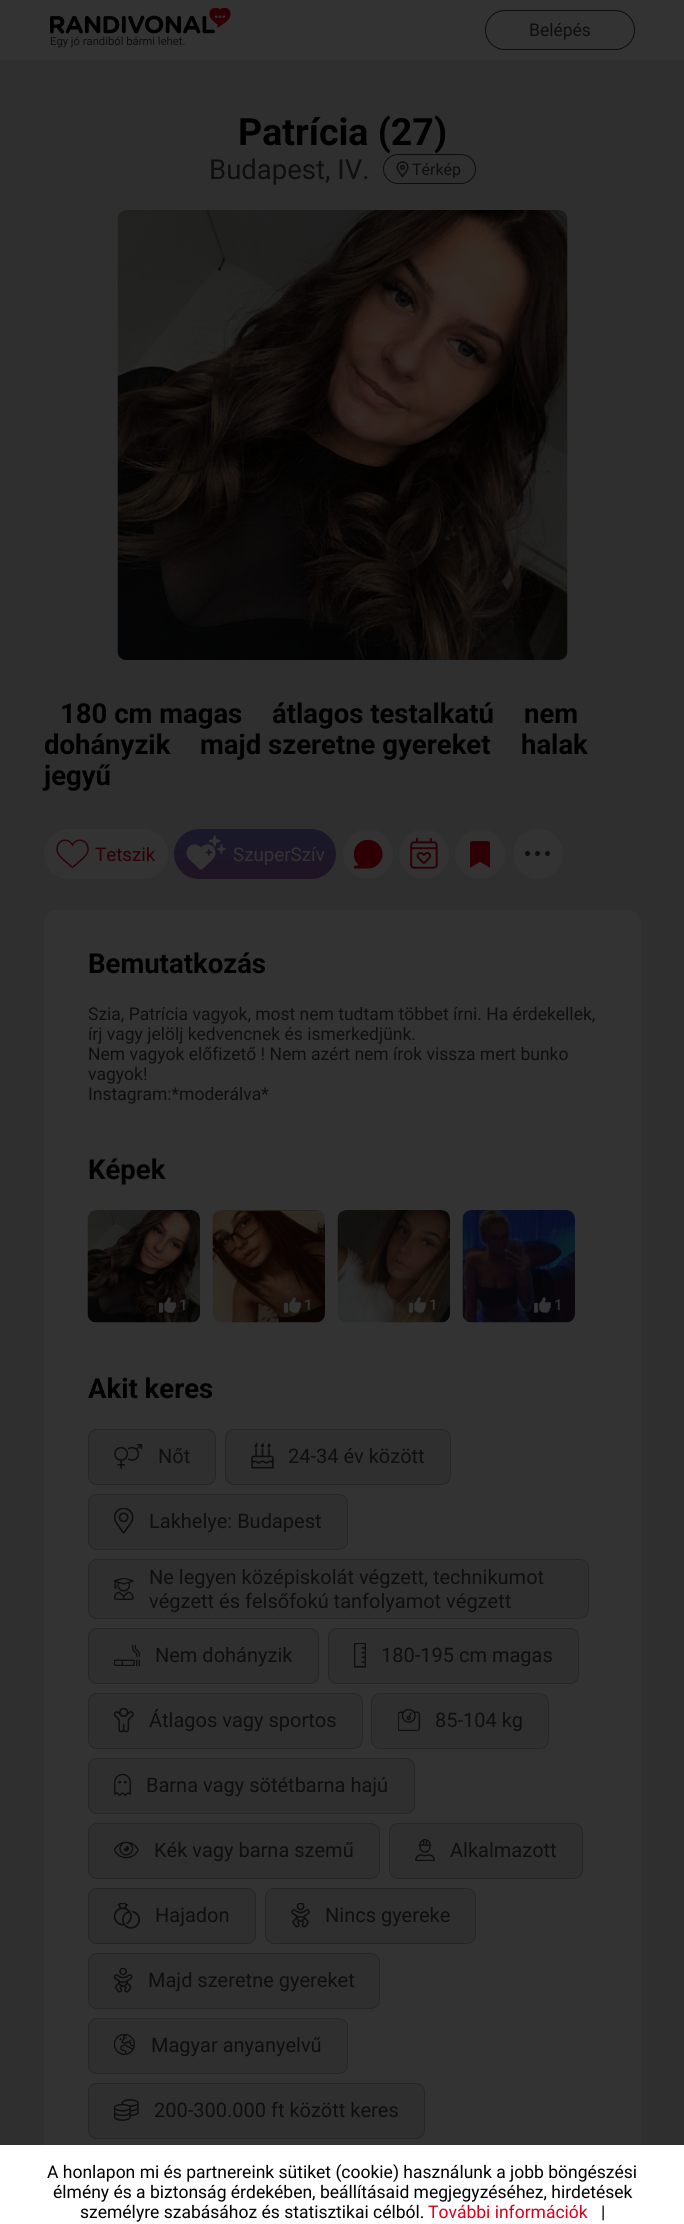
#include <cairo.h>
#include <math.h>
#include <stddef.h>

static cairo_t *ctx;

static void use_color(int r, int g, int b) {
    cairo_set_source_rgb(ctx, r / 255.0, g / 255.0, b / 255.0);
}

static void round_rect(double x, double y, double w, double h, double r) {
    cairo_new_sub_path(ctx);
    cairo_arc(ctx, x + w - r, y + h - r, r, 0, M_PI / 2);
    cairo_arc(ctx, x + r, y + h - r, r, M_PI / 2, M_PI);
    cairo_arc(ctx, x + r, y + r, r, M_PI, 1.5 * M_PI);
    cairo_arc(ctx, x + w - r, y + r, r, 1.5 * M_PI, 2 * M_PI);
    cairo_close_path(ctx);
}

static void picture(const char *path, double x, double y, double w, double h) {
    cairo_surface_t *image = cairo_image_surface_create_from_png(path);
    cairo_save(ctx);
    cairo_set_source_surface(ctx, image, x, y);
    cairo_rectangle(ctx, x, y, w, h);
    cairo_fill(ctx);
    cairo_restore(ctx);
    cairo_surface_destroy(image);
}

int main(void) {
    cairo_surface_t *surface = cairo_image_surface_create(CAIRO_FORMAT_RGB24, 684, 2224);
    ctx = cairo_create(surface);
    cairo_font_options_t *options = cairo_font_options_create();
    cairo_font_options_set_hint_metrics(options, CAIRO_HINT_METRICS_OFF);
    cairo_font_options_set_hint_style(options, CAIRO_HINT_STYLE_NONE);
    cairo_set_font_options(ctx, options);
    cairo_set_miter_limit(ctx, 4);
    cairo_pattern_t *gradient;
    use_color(47, 47, 47);
    cairo_paint(ctx);
    use_color(51, 51, 51);
    cairo_rectangle(ctx, 0, 0, 684, 60);
    cairo_fill(ctx);
    round_rect(485.5, 10.5, 149, 39, 19.5);
    use_color(14, 14, 14);
    cairo_set_line_width(ctx, 1);
    cairo_stroke(ctx);
    cairo_select_font_face(ctx, "Roboto", CAIRO_FONT_SLANT_NORMAL, CAIRO_FONT_WEIGHT_NORMAL);
    cairo_set_font_size(ctx, 17.5);
    cairo_move_to(ctx, 529, 36);
    cairo_show_text(ctx, "Belépés");
    picture("img1.png", 50, 8, 181, 26);
    cairo_set_font_size(ctx, 11.25);
    cairo_move_to(ctx, 50, 45);
    cairo_show_text(ctx, "Egy jó randiból bármi lehet.");
    cairo_select_font_face(ctx, "Roboto", CAIRO_FONT_SLANT_NORMAL, CAIRO_FONT_WEIGHT_BOLD);
    cairo_set_font_size(ctx, 37.5);
    use_color(0, 0, 0);
    cairo_move_to(ctx, 238, 145);
    cairo_show_text(ctx, "Patrícia (27)");
    cairo_select_font_face(ctx, "Roboto", CAIRO_FONT_SLANT_NORMAL, CAIRO_FONT_WEIGHT_NORMAL);
    cairo_set_font_size(ctx, 27.5);
    use_color(14, 14, 14);
    cairo_move_to(ctx, 209, 179);
    cairo_show_text(ctx, "Budapest, IV.");
    round_rect(383.5, 154.5, 92, 29, 14.5);
    cairo_stroke(ctx);
    picture("img2.png", 396, 161, 13, 17);
    cairo_set_font_size(ctx, 16);
    cairo_move_to(ctx, 412, 175);
    cairo_show_text(ctx, "Térkép");
    picture("img3.png", 117, 210, 451, 450);
    cairo_select_font_face(ctx, "Roboto", CAIRO_FONT_SLANT_NORMAL, CAIRO_FONT_WEIGHT_BOLD);
    cairo_set_font_size(ctx, 27.5);
    use_color(0, 0, 0);
    cairo_move_to(ctx, 60, 723);
    cairo_show_text(ctx, "180 cm magas");
    cairo_move_to(ctx, 272, 723);
    cairo_show_text(ctx, "átlagos testalkatú");
    cairo_move_to(ctx, 524, 723);
    cairo_show_text(ctx, "nem");
    cairo_move_to(ctx, 44, 754);
    cairo_show_text(ctx, "dohányzik");
    cairo_move_to(ctx, 200, 754);
    cairo_show_text(ctx, "majd szeretne gyereket");
    cairo_move_to(ctx, 521, 754);
    cairo_show_text(ctx, "halak");
    cairo_move_to(ctx, 44, 785);
    cairo_show_text(ctx, "jegyű");
    use_color(51, 51, 51);
    round_rect(44, 829, 124, 50, 25);
    cairo_fill(ctx);
    picture("img4.png", 56, 839, 33, 29);
    cairo_select_font_face(ctx, "Roboto", CAIRO_FONT_SLANT_NORMAL, CAIRO_FONT_WEIGHT_NORMAL);
    cairo_set_font_size(ctx, 18.75);
    use_color(44, 0, 5);
    cairo_move_to(ctx, 95, 861);
    cairo_show_text(ctx, "Tetszik");
    gradient = cairo_pattern_create_linear(255, 829, 255, 879);
    cairo_pattern_add_color_stop_rgba(gradient, 0, 0.094, 0.098, 0.165, 1);
    cairo_pattern_add_color_stop_rgba(gradient, 1, 0.122, 0.075, 0.137, 1);
    cairo_set_source(ctx, gradient);
    cairo_pattern_destroy(gradient);
    round_rect(174, 829, 162, 50, 25);
    cairo_fill(ctx);
    picture("img5.png", 186, 835, 40, 35);
    use_color(51, 51, 51);
    cairo_move_to(ctx, 233, 861);
    cairo_show_text(ctx, "SzuperSzív");
    cairo_new_path(ctx);
    cairo_arc(ctx, 368, 854, 25, 0, 2 * M_PI);
    cairo_fill(ctx);
    picture("img6.png", 354, 839, 29, 30);
    cairo_arc(ctx, 424, 854, 25, 0, 2 * M_PI);
    cairo_fill(ctx);
    picture("img7.png", 410, 838, 28, 31);
    cairo_arc(ctx, 480, 854, 25, 0, 2 * M_PI);
    cairo_fill(ctx);
    picture("img8.png", 470, 841, 20, 27);
    cairo_arc(ctx, 538, 854, 25, 0, 2 * M_PI);
    cairo_fill(ctx);
    use_color(14, 14, 14);
    cairo_arc(ctx, 527.5, 853.5, 2.5, 0, 2 * M_PI);
    cairo_fill(ctx);
    cairo_arc(ctx, 537.5, 853.5, 2.5, 0, 2 * M_PI);
    cairo_fill(ctx);
    cairo_arc(ctx, 547.5, 853.5, 2.5, 0, 2 * M_PI);
    cairo_fill(ctx);
    use_color(51, 51, 51);
    round_rect(44, 910, 597, 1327, 13);
    cairo_fill(ctx);
    cairo_select_font_face(ctx, "Roboto", CAIRO_FONT_SLANT_NORMAL, CAIRO_FONT_WEIGHT_BOLD);
    cairo_set_font_size(ctx, 27.5);
    use_color(0, 0, 0);
    cairo_move_to(ctx, 88, 973);
    cairo_show_text(ctx, "Bemutatkozás");
    cairo_select_font_face(ctx, "Roboto", CAIRO_FONT_SLANT_NORMAL, CAIRO_FONT_WEIGHT_NORMAL);
    cairo_set_font_size(ctx, 17.5);
    use_color(14, 14, 14);
    cairo_move_to(ctx, 88, 1020);
    cairo_show_text(ctx, "Szia, Patrícia vagyok, most nem tudtam többet írni. Ha érdekellek,");
    cairo_move_to(ctx, 88, 1040);
    cairo_show_text(ctx, "írj vagy jelölj kedvencnek és ismerkedjünk.");
    cairo_move_to(ctx, 88, 1060);
    cairo_show_text(ctx, "Nem vagyok előfizető ! Nem azért nem írok vissza mert bunko");
    cairo_move_to(ctx, 88, 1080);
    cairo_show_text(ctx, "vagyok!");
    cairo_move_to(ctx, 88, 1100);
    cairo_show_text(ctx, "Instagram:*moderálva*");
    cairo_select_font_face(ctx, "Roboto", CAIRO_FONT_SLANT_NORMAL, CAIRO_FONT_WEIGHT_BOLD);
    cairo_set_font_size(ctx, 27.5);
    use_color(0, 0, 0);
    cairo_move_to(ctx, 88, 1179);
    cairo_show_text(ctx, "Képek");
    picture("img9.png", 87, 1210, 113, 113);
    cairo_set_source_rgba(ctx, 0, 0, 0, 0.1);
    round_rect(153, 1294, 41, 22, 11);
    cairo_fill(ctx);
    picture("img10.png", 159, 1297, 17, 16);
    cairo_select_font_face(ctx, "Roboto Medium", CAIRO_FONT_SLANT_NORMAL, CAIRO_FONT_WEIGHT_NORMAL);
    cairo_set_font_size(ctx, 15);
    use_color(51, 51, 51);
    cairo_move_to(ctx, 179, 1310);
    cairo_show_text(ctx, "1");
    picture("img11.png", 212, 1210, 113, 113);
    cairo_set_source_rgba(ctx, 0, 0, 0, 0.1);
    round_rect(278, 1294, 41, 22, 11);
    cairo_fill(ctx);
    picture("img12.png", 284, 1297, 17, 16);
    use_color(51, 51, 51);
    cairo_move_to(ctx, 304, 1310);
    cairo_show_text(ctx, "1");
    picture("img13.png", 337, 1210, 113, 113);
    cairo_set_source_rgba(ctx, 0, 0, 0, 0.1);
    round_rect(403, 1294, 41, 22, 11);
    cairo_fill(ctx);
    picture("img14.png", 409, 1297, 17, 16);
    use_color(51, 51, 51);
    cairo_move_to(ctx, 429, 1310);
    cairo_show_text(ctx, "1");
    picture("img15.png", 462, 1210, 113, 113);
    picture("img16.png", 534, 1297, 17, 16);
    cairo_move_to(ctx, 554, 1310);
    cairo_show_text(ctx, "1");
    cairo_select_font_face(ctx, "Roboto", CAIRO_FONT_SLANT_NORMAL, CAIRO_FONT_WEIGHT_BOLD);
    cairo_set_font_size(ctx, 27.5);
    use_color(0, 0, 0);
    cairo_move_to(ctx, 88, 1398);
    cairo_show_text(ctx, "Akit keres");
    use_color(47, 47, 47);
    round_rect(88.5, 1429.5, 127, 55, 8.5);
    cairo_fill_preserve(ctx);
    use_color(38, 38, 38);
    cairo_stroke(ctx);
    picture("img17.png", 114, 1444, 29, 25);
    cairo_select_font_face(ctx, "Roboto", CAIRO_FONT_SLANT_NORMAL, CAIRO_FONT_WEIGHT_NORMAL);
    cairo_set_font_size(ctx, 20);
    use_color(14, 14, 14);
    cairo_move_to(ctx, 158, 1463);
    cairo_show_text(ctx, "Nőt");
    use_color(47, 47, 47);
    round_rect(225.5, 1429.5, 225, 55, 8.5);
    cairo_fill_preserve(ctx);
    use_color(38, 38, 38);
    cairo_stroke(ctx);
    picture("img18.png", 251, 1443, 23, 26);
    use_color(14, 14, 14);
    cairo_move_to(ctx, 288, 1463);
    cairo_show_text(ctx, "24-34 év között");
    use_color(47, 47, 47);
    round_rect(88.5, 1494.5, 259, 55, 8.5);
    cairo_fill_preserve(ctx);
    use_color(38, 38, 38);
    cairo_stroke(ctx);
    picture("img19.png", 114, 1508, 20, 26);
    use_color(14, 14, 14);
    cairo_move_to(ctx, 149, 1528);
    cairo_show_text(ctx, "Lakhelye: Budapest");
    use_color(47, 47, 47);
    round_rect(88.5, 1559.5, 500, 59, 8.5);
    cairo_fill_preserve(ctx);
    use_color(38, 38, 38);
    cairo_stroke(ctx);
    picture("img20.png", 114, 1578, 20, 22);
    use_color(14, 14, 14);
    cairo_move_to(ctx, 149, 1584);
    cairo_show_text(ctx, "Ne legyen középiskolát végzett, technikumot");
    cairo_move_to(ctx, 149, 1608);
    cairo_show_text(ctx, "végzett és felsőfokú tanfolyamot végzett");
    use_color(47, 47, 47);
    round_rect(88.5, 1628.5, 230, 55, 8.5);
    cairo_fill_preserve(ctx);
    use_color(38, 38, 38);
    cairo_stroke(ctx);
    picture("img21.png", 114, 1645, 26, 21);
    use_color(14, 14, 14);
    cairo_move_to(ctx, 155, 1662);
    cairo_show_text(ctx, "Nem dohányzik");
    use_color(47, 47, 47);
    round_rect(328.5, 1628.5, 250, 55, 8.5);
    cairo_fill_preserve(ctx);
    use_color(38, 38, 38);
    cairo_stroke(ctx);
    picture("img22.png", 354, 1643, 12, 25);
    use_color(14, 14, 14);
    cairo_move_to(ctx, 381, 1662);
    cairo_show_text(ctx, "180-195 cm magas");
    use_color(47, 47, 47);
    round_rect(88.5, 1693.5, 274, 55, 8.5);
    cairo_fill_preserve(ctx);
    use_color(38, 38, 38);
    cairo_stroke(ctx);
    picture("img23.png", 114, 1708, 20, 25);
    use_color(14, 14, 14);
    cairo_move_to(ctx, 149, 1727);
    cairo_show_text(ctx, "Átlagos vagy sportos");
    use_color(47, 47, 47);
    round_rect(371.5, 1693.5, 177, 55, 8.5);
    cairo_fill_preserve(ctx);
    use_color(38, 38, 38);
    cairo_stroke(ctx);
    picture("img24.png", 398, 1709, 22, 22);
    use_color(14, 14, 14);
    cairo_move_to(ctx, 435, 1727);
    cairo_show_text(ctx, "85-104 kg");
    use_color(47, 47, 47);
    round_rect(88.5, 1758.5, 326, 55, 8.5);
    cairo_fill_preserve(ctx);
    use_color(38, 38, 38);
    cairo_stroke(ctx);
    picture("img25.png", 114, 1774, 17, 22);
    use_color(14, 14, 14);
    cairo_move_to(ctx, 146, 1792);
    cairo_show_text(ctx, "Barna vagy sötétbarna hajú");
    use_color(47, 47, 47);
    round_rect(88.5, 1823.5, 291, 55, 8.5);
    cairo_fill_preserve(ctx);
    use_color(38, 38, 38);
    cairo_stroke(ctx);
    picture("img26.png", 114, 1841, 25, 18);
    use_color(14, 14, 14);
    cairo_move_to(ctx, 154, 1857);
    cairo_show_text(ctx, "Kék vagy barna szemű");
    use_color(47, 47, 47);
    round_rect(389.5, 1823.5, 193, 55, 8.5);
    cairo_fill_preserve(ctx);
    use_color(38, 38, 38);
    cairo_stroke(ctx);
    picture("img27.png", 415, 1839, 20, 22);
    use_color(14, 14, 14);
    cairo_move_to(ctx, 450, 1857);
    cairo_show_text(ctx, "Alkalmazott");
    use_color(47, 47, 47);
    round_rect(88.5, 1888.5, 167, 55, 8.5);
    cairo_fill_preserve(ctx);
    use_color(38, 38, 38);
    cairo_stroke(ctx);
    picture("img28.png", 114, 1903, 26, 26);
    use_color(14, 14, 14);
    cairo_move_to(ctx, 155, 1922);
    cairo_show_text(ctx, "Hajadon");
    use_color(47, 47, 47);
    round_rect(265.5, 1888.5, 210, 55, 8.5);
    cairo_fill_preserve(ctx);
    use_color(38, 38, 38);
    cairo_stroke(ctx);
    picture("img29.png", 291, 1903, 19, 25);
    use_color(14, 14, 14);
    cairo_move_to(ctx, 325, 1922);
    cairo_show_text(ctx, "Nincs gyereke");
    use_color(47, 47, 47);
    round_rect(88.5, 1953.5, 291, 55, 8.5);
    cairo_fill_preserve(ctx);
    use_color(38, 38, 38);
    cairo_stroke(ctx);
    picture("img30.png", 114, 1968, 19, 25);
    use_color(14, 14, 14);
    cairo_move_to(ctx, 148, 1987);
    cairo_show_text(ctx, "Majd szeretne gyereket");
    use_color(47, 47, 47);
    round_rect(88.5, 2018.5, 259, 55, 8.5);
    cairo_fill_preserve(ctx);
    use_color(38, 38, 38);
    cairo_stroke(ctx);
    picture("img31.png", 114, 2034, 21, 21);
    use_color(14, 14, 14);
    cairo_move_to(ctx, 151, 2052);
    cairo_show_text(ctx, "Magyar anyanyelvű");
    use_color(47, 47, 47);
    round_rect(88.5, 2083.5, 336, 55, 8.5);
    cairo_fill_preserve(ctx);
    use_color(38, 38, 38);
    cairo_stroke(ctx);
    picture("img32.png", 114, 2099, 25, 22);
    use_color(14, 14, 14);
    cairo_move_to(ctx, 154, 2117);
    cairo_show_text(ctx, "200-300.000 ft között keres");
    use_color(255, 255, 255);
    cairo_rectangle(ctx, 0, 2145, 684, 79);
    cairo_fill(ctx);
    cairo_set_font_size(ctx, 17.5);
    use_color(0, 0, 0);
    cairo_move_to(ctx, 47, 2178);
    cairo_show_text(ctx, "A honlapon mi és partnereink sütiket (cookie) használunk a jobb böngészési");
    cairo_move_to(ctx, 53, 2198);
    cairo_show_text(ctx, "élmény és a biztonság érdekében, beállításaid megjegyzéséhez, hirdetések");
    cairo_move_to(ctx, 80, 2218);
    cairo_show_text(ctx, "személyre szabásához és statisztikai célból.");
    use_color(218, 0, 27);
    cairo_move_to(ctx, 428, 2218);
    cairo_show_text(ctx, "További információk");
    use_color(0, 0, 0);
    cairo_move_to(ctx, 601, 2218);
    cairo_show_text(ctx, "|");
    cairo_surface_write_to_png(surface, "result.png");
    cairo_font_options_destroy(options);
    cairo_destroy(ctx);
    cairo_surface_destroy(surface);
    return 0;
}
